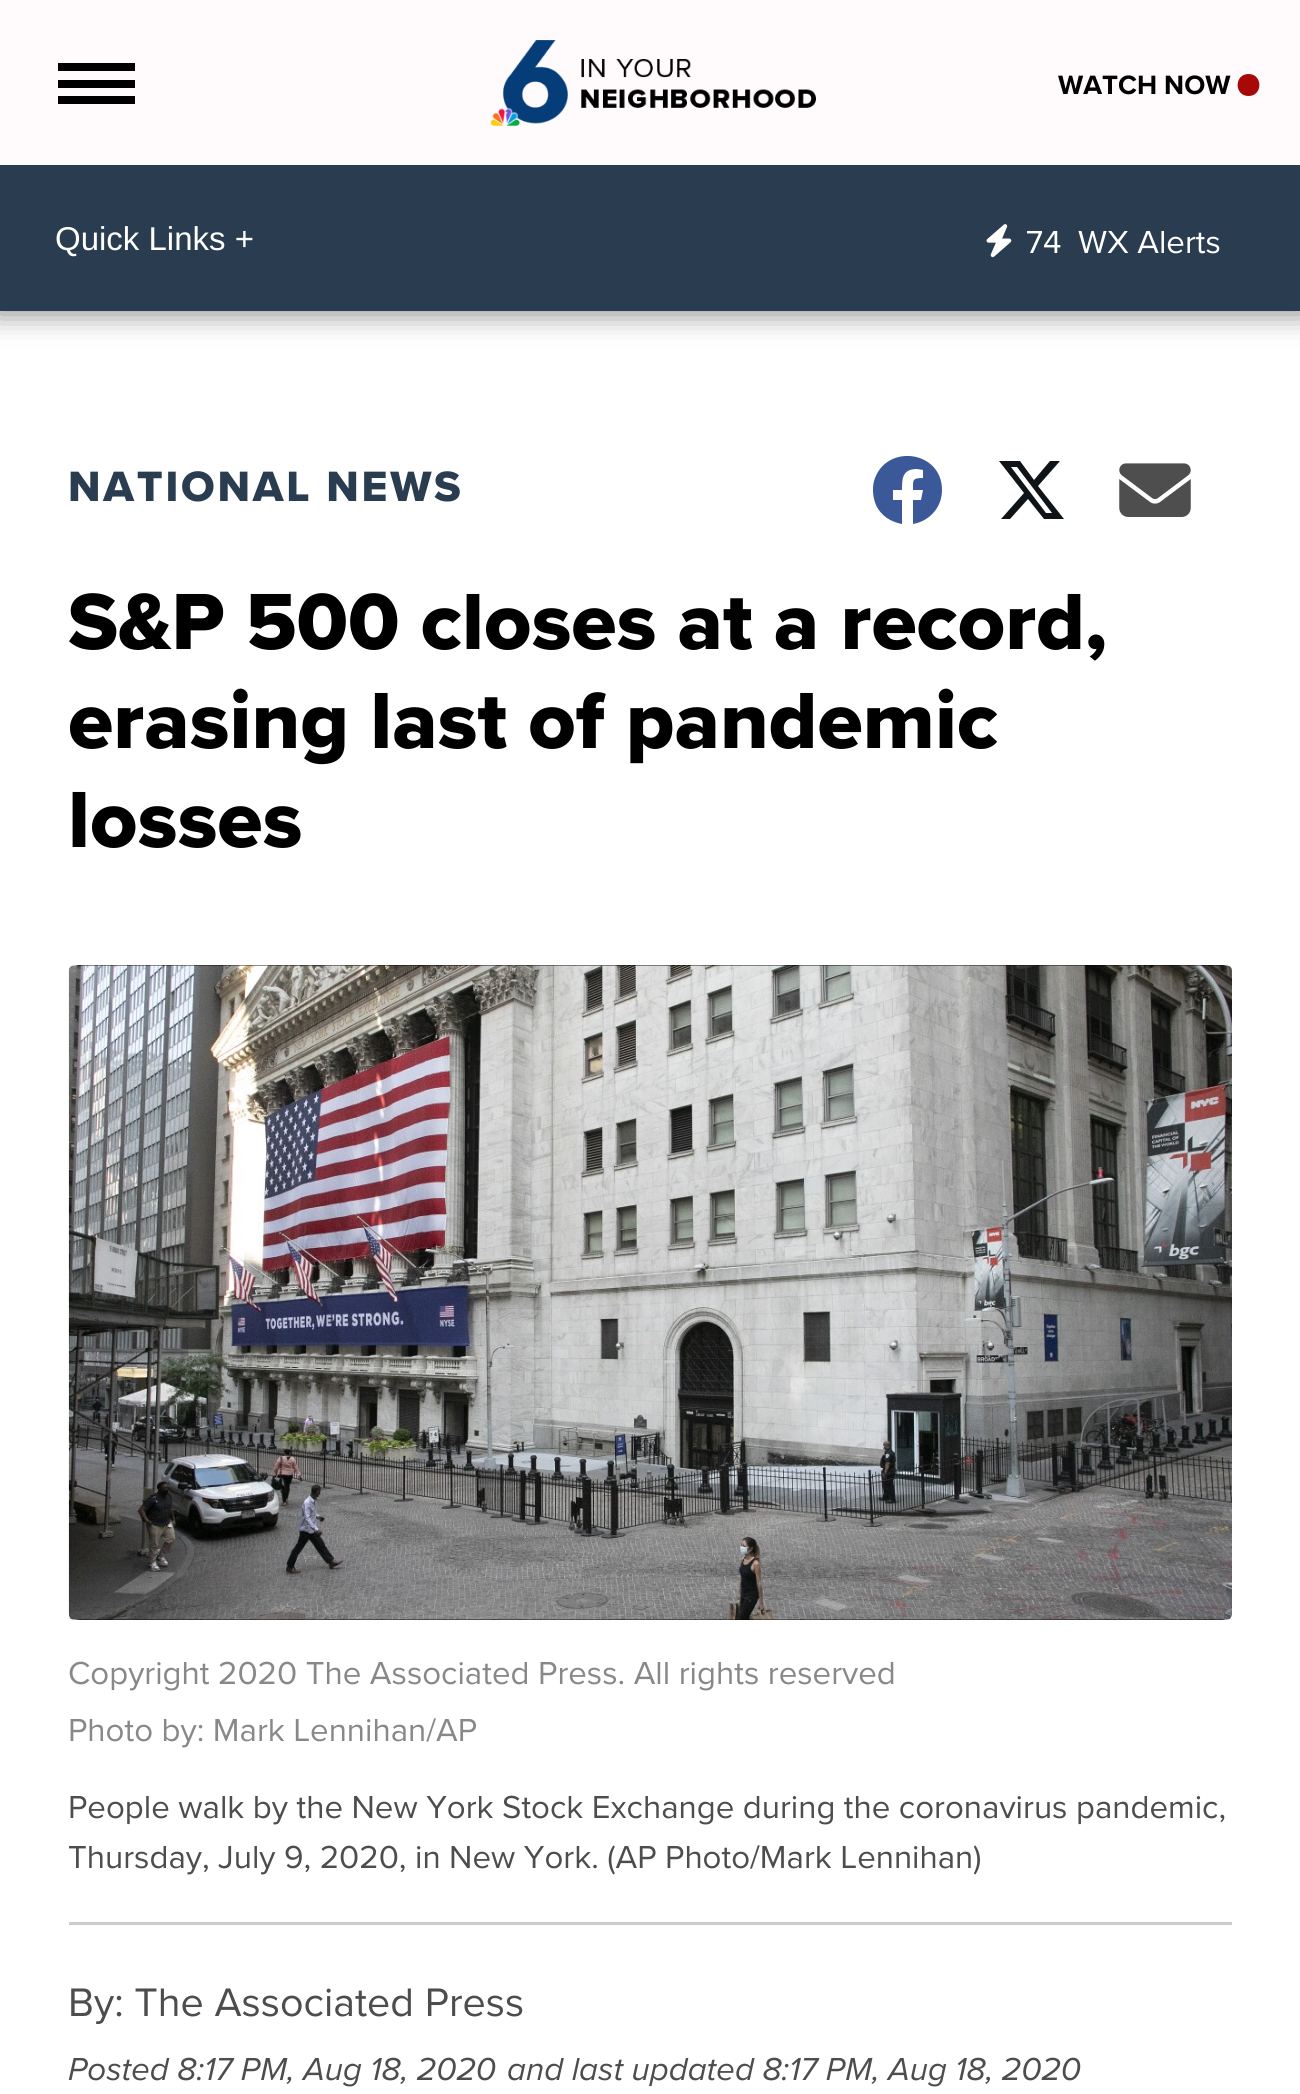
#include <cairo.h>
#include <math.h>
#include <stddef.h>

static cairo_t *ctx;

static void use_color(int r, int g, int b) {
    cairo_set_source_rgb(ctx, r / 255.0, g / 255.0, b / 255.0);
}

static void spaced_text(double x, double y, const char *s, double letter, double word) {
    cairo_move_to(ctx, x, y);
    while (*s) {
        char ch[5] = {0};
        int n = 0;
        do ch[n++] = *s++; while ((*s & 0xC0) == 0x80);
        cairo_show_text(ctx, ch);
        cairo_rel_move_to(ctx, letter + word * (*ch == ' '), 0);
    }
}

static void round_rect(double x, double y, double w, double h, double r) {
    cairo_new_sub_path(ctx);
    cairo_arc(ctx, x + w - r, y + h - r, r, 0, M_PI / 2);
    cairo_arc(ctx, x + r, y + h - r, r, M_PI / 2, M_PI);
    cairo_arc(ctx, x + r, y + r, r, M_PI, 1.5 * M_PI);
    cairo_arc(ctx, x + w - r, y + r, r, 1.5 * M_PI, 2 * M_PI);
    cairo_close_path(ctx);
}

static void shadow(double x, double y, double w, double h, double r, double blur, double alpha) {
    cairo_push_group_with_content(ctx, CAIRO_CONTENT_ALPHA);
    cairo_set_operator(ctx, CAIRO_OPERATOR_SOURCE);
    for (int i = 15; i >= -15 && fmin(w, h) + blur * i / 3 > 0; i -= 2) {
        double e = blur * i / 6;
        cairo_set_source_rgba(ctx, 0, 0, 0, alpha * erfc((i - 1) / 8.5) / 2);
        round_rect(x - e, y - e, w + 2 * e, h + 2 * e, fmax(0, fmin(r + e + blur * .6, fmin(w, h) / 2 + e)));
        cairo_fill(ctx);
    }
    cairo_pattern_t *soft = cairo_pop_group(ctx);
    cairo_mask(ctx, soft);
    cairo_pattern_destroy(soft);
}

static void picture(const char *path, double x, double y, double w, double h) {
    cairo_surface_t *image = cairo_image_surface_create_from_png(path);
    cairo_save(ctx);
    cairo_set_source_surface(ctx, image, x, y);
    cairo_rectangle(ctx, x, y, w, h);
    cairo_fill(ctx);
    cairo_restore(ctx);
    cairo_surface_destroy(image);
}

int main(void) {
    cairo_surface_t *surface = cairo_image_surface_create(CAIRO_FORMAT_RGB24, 1300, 2094);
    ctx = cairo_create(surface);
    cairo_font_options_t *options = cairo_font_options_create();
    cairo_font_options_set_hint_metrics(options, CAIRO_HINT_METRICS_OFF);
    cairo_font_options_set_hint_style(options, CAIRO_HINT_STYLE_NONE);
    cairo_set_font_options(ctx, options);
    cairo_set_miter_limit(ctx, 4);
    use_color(255, 255, 255);
    cairo_paint(ctx);
    use_color(97, 97, 97);
    shadow(-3, -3, 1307, 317, 0, 14, 0.76);
    use_color(255, 251, 253);
    cairo_rectangle(ctx, 0, 0, 1300, 165);
    cairo_fill(ctx);
    use_color(0, 0, 0);
    cairo_rectangle(ctx, 58, 63, 77, 8);
    cairo_fill(ctx);
    cairo_rectangle(ctx, 58, 80, 77, 8);
    cairo_fill(ctx);
    cairo_rectangle(ctx, 58, 96, 77, 8);
    cairo_fill(ctx);
    picture("img1.png", 490, 40, 326, 86);
    cairo_select_font_face(ctx, "Proxima Nova", CAIRO_FONT_SLANT_NORMAL, CAIRO_FONT_WEIGHT_BOLD);
    cairo_set_font_size(ctx, 27.5);
    cairo_move_to(ctx, 1058, 94);
    cairo_show_text(ctx, "WATCH NOW");
    use_color(167, 8, 8);
    cairo_new_path(ctx);
    cairo_move_to(ctx, 1248.5, 96);
    cairo_curve_to(ctx, 1263, 96, 1263, 74, 1248.5, 74);
    cairo_curve_to(ctx, 1234, 74, 1234, 96, 1248.5, 96);
    cairo_close_path(ctx);
    cairo_fill(ctx);
    use_color(42, 60, 79);
    cairo_rectangle(ctx, 0, 165, 1300, 146);
    cairo_fill(ctx);
    cairo_select_font_face(ctx, "Liberation Sans", CAIRO_FONT_SLANT_NORMAL, CAIRO_FONT_WEIGHT_NORMAL);
    cairo_set_font_size(ctx, 33);
    use_color(255, 255, 255);
    cairo_move_to(ctx, 55, 250);
    cairo_show_text(ctx, "Quick Links +");
    picture("img2.png", 986, 224, 26, 34);
    cairo_select_font_face(ctx, "Proxima Nova", CAIRO_FONT_SLANT_NORMAL, CAIRO_FONT_WEIGHT_NORMAL);
    cairo_move_to(ctx, 1026, 253);
    cairo_show_text(ctx, "74");
    cairo_move_to(ctx, 1078, 253);
    cairo_show_text(ctx, "WX Alerts");
    cairo_select_font_face(ctx, "Proxima Nova ExtraBold", CAIRO_FONT_SLANT_NORMAL, CAIRO_FONT_WEIGHT_NORMAL);
    cairo_set_font_size(ctx, 44);
    use_color(42, 60, 79);
    spaced_text(68, 501, "NATIONAL NEWS", 2.75, 0);
    use_color(59, 89, 152);
    cairo_new_path(ctx);
    cairo_move_to(ctx, 942, 490);
    cairo_curve_to(ctx, 942, 450, 885, 443, 874, 481);
    cairo_curve_to(ctx, 872, 489, 873, 498, 876, 505);
    cairo_curve_to(ctx, 881, 516, 891, 522, 902, 524);
    cairo_line_to(ctx, 902, 500);
    cairo_line_to(ctx, 893, 500);
    cairo_line_to(ctx, 893, 490);
    cairo_line_to(ctx, 902, 490);
    cairo_curve_to(ctx, 902, 479, 902, 469, 917, 469);
    cairo_line_to(ctx, 923, 470);
    cairo_line_to(ctx, 923, 478);
    cairo_curve_to(ctx, 912, 478, 913, 480, 913, 490);
    cairo_line_to(ctx, 923, 490);
    cairo_line_to(ctx, 921, 500);
    cairo_line_to(ctx, 913, 500);
    cairo_line_to(ctx, 913, 524);
    cairo_curve_to(ctx, 930, 521, 942, 507, 942, 490);
    cairo_close_path(ctx);
    cairo_fill(ctx);
    use_color(15, 20, 25);
    cairo_new_path(ctx);
    cairo_move_to(ctx, 1050, 461);
    cairo_line_to(ctx, 1060, 461);
    cairo_line_to(ctx, 1038, 486);
    cairo_line_to(ctx, 1064, 519);
    cairo_line_to(ctx, 1044, 519);
    cairo_line_to(ctx, 1028, 499);
    cairo_line_to(ctx, 1010, 519);
    cairo_line_to(ctx, 1001, 519);
    cairo_line_to(ctx, 1024, 493);
    cairo_line_to(ctx, 999, 461);
    cairo_line_to(ctx, 1020, 461);
    cairo_line_to(ctx, 1034, 480);
    cairo_close_path(ctx);
    cairo_move_to(ctx, 1046, 513);
    cairo_line_to(ctx, 1052, 513);
    cairo_line_to(ctx, 1017, 467);
    cairo_line_to(ctx, 1011, 467);
    cairo_close_path(ctx);
    cairo_fill(ctx);
    picture("img3.png", 1119, 463, 72, 54);
    cairo_set_font_size(ctx, 82.5);
    use_color(0, 0, 0);
    cairo_move_to(ctx, 68, 649);
    cairo_show_text(ctx, "S&P 500 closes at a record,");
    cairo_move_to(ctx, 68, 748);
    cairo_show_text(ctx, "erasing last of pandemic");
    cairo_move_to(ctx, 68, 847);
    cairo_show_text(ctx, "losses");
    use_color(204, 204, 204);
    cairo_rectangle(ctx, 69, 1922, 1163, 3);
    cairo_fill(ctx);
    use_color(0, 0, 0);
    round_rect(69, 965, 1163, 655, 11);
    cairo_fill(ctx);
    picture("img4.png", 68, 965, 1164, 655);
    cairo_select_font_face(ctx, "Proxima Nova", CAIRO_FONT_SLANT_NORMAL, CAIRO_FONT_WEIGHT_NORMAL);
    cairo_set_font_size(ctx, 33);
    use_color(136, 136, 136);
    cairo_move_to(ctx, 68, 1684);
    cairo_show_text(ctx, "Copyright 2020 The Associated Press. All rights reserved");
    cairo_move_to(ctx, 68, 1741);
    cairo_show_text(ctx, "Photo by: Mark Lennihan/AP");
    use_color(77, 77, 77);
    cairo_move_to(ctx, 68, 1818);
    cairo_show_text(ctx, "People walk by the New York Stock Exchange during the coronavirus pandemic,");
    cairo_move_to(ctx, 68, 1868);
    cairo_show_text(ctx, "Thursday, July 9, 2020, in New York. (AP Photo/Mark Lennihan)");
    cairo_set_font_size(ctx, 41.25);
    cairo_move_to(ctx, 68, 2016);
    cairo_show_text(ctx, "By: The Associated Press");
    cairo_select_font_face(ctx, "Proxima Nova", CAIRO_FONT_SLANT_ITALIC, CAIRO_FONT_WEIGHT_NORMAL);
    cairo_set_font_size(ctx, 33);
    cairo_move_to(ctx, 68, 2080);
    cairo_show_text(ctx, "Posted 8:17 PM, Aug 18, 2020");
    cairo_move_to(ctx, 507, 2080);
    cairo_show_text(ctx, "and last updated 8:17 PM, Aug 18, 2020");
    cairo_surface_write_to_png(surface, "result.png");
    cairo_font_options_destroy(options);
    cairo_destroy(ctx);
    cairo_surface_destroy(surface);
    return 0;
}
